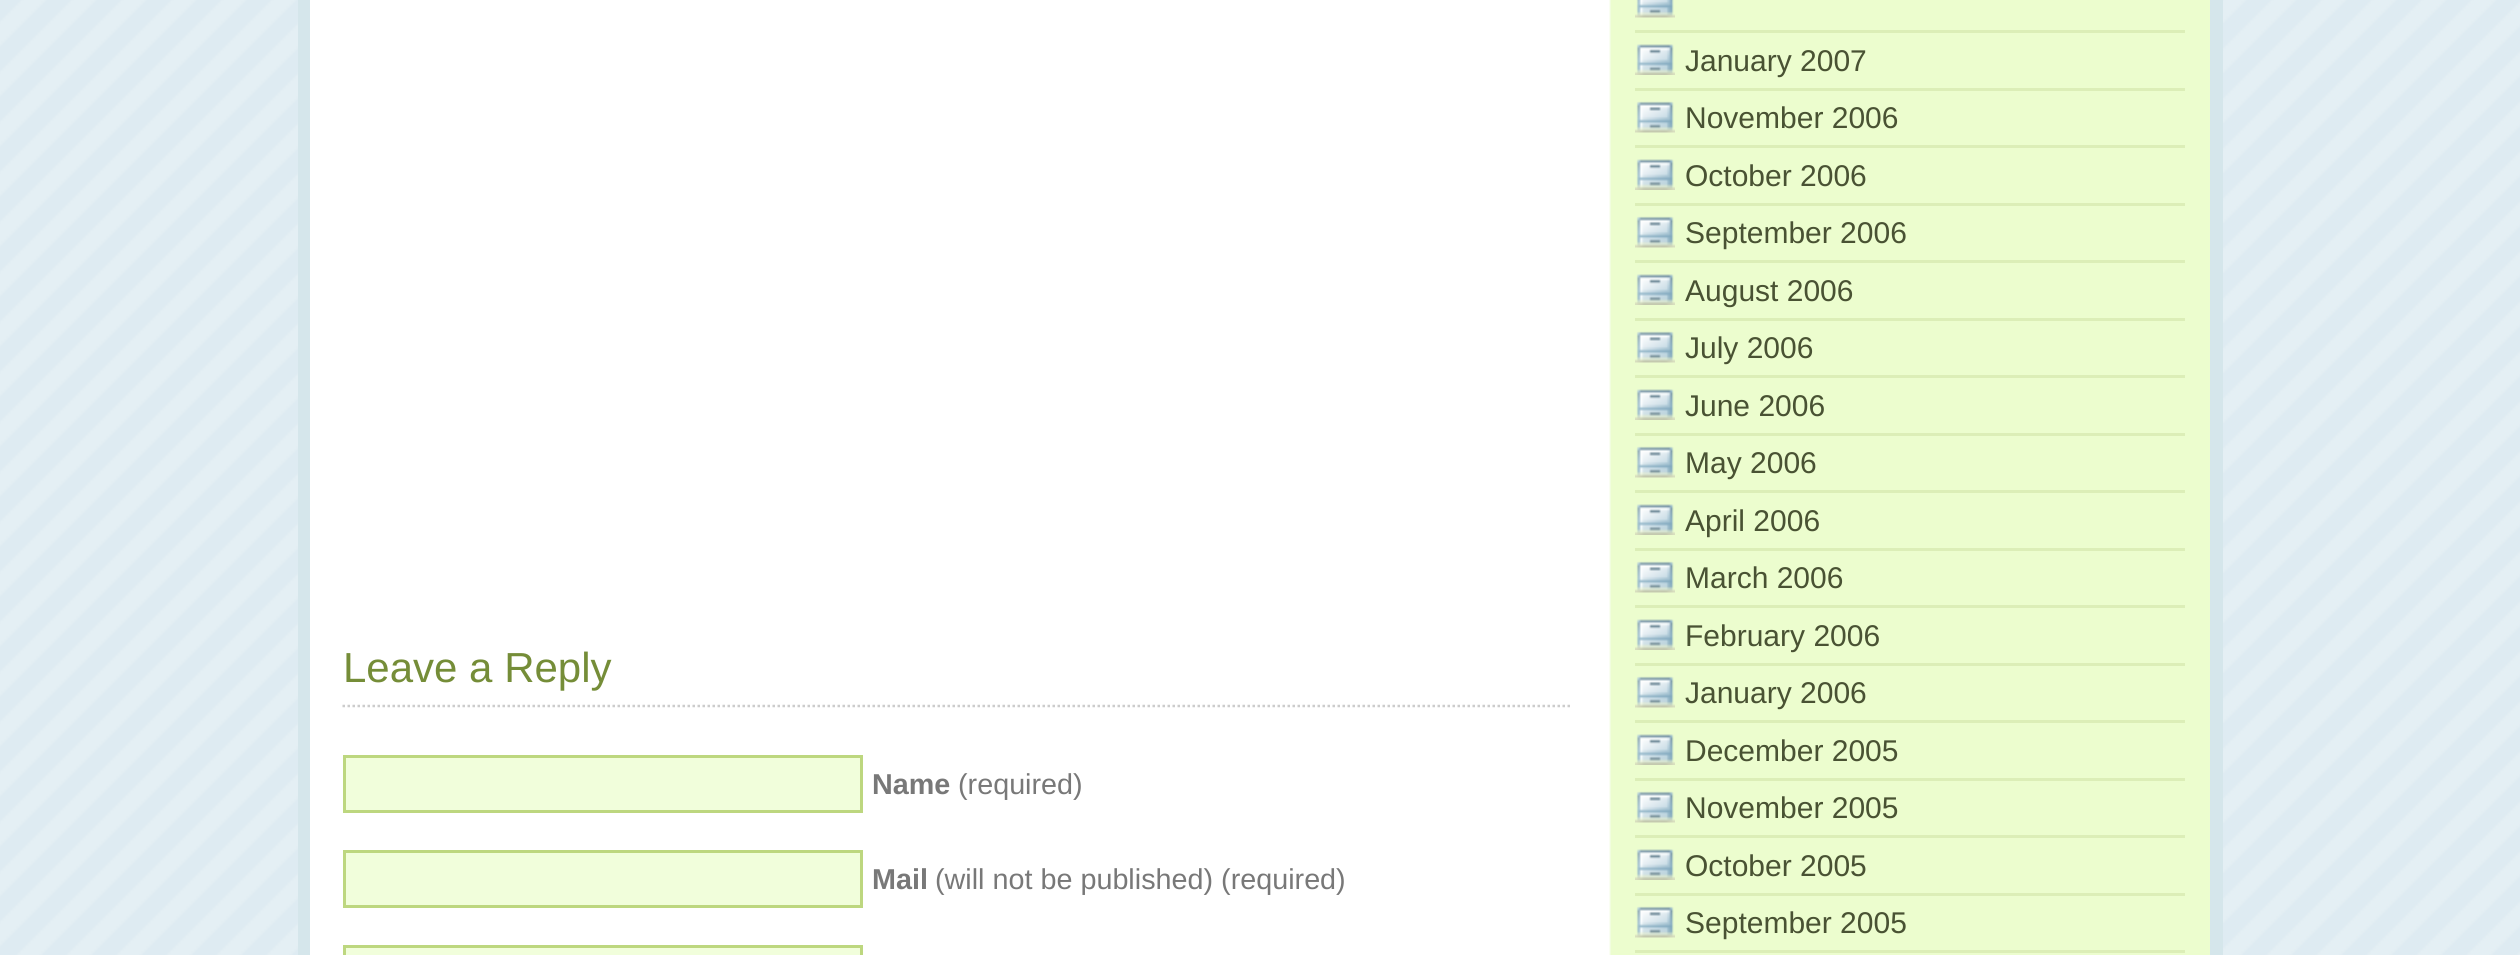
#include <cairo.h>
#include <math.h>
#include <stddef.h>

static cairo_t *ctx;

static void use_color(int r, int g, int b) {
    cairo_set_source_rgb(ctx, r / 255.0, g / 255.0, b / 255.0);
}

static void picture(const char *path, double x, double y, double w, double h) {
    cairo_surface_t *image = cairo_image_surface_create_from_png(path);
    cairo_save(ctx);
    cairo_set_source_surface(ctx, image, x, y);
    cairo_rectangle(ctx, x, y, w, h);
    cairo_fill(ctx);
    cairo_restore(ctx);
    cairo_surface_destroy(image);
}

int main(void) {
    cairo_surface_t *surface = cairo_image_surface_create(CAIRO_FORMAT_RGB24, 2520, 955);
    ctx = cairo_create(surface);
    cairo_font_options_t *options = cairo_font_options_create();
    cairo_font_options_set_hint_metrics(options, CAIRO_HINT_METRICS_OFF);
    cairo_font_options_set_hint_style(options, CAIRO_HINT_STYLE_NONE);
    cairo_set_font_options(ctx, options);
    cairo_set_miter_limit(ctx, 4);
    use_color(255, 255, 255);
    cairo_paint(ctx);
    picture("img1.png", 0, 0, 2520, 955);
    use_color(255, 255, 255);
    cairo_rectangle(ctx, 310, 0, 1299, 955);
    cairo_fill(ctx);
    picture("img2.png", 1609, 0, 601, 955);
    use_color(213, 230, 235);
    cairo_rectangle(ctx, 2210, 0, 13, 955);
    cairo_fill(ctx);
    cairo_rectangle(ctx, 298, 0, 12, 955);
    cairo_fill(ctx);
    cairo_new_path(ctx);
    cairo_move_to(ctx, 342.5, 706);
    cairo_line_to(ctx, 1572.5, 706);
    use_color(204, 204, 204);
    cairo_set_line_width(ctx, 2.5);
    cairo_set_dash(ctx, (double[]){2.5, 2.5}, 2, 0);
    cairo_stroke(ctx);
    cairo_select_font_face(ctx, "Liberation Sans", CAIRO_FONT_SLANT_NORMAL, CAIRO_FONT_WEIGHT_NORMAL);
    cairo_set_font_size(ctx, 42);
    use_color(117, 141, 56);
    cairo_move_to(ctx, 343, 682);
    cairo_show_text(ctx, "Leave a Reply");
    use_color(241, 254, 219);
    cairo_rectangle(ctx, 344.5, 756.5, 517, 55);
    cairo_fill_preserve(ctx);
    use_color(189, 215, 127);
    cairo_set_line_width(ctx, 3);
    cairo_set_dash(ctx, NULL, 0, 0);
    cairo_stroke(ctx);
    cairo_select_font_face(ctx, "Liberation Sans", CAIRO_FONT_SLANT_NORMAL, CAIRO_FONT_WEIGHT_BOLD);
    cairo_set_font_size(ctx, 28.75);
    use_color(120, 120, 120);
    cairo_move_to(ctx, 872, 794);
    cairo_show_text(ctx, "Name");
    cairo_select_font_face(ctx, "Liberation Sans", CAIRO_FONT_SLANT_NORMAL, CAIRO_FONT_WEIGHT_NORMAL);
    cairo_move_to(ctx, 958, 794);
    cairo_show_text(ctx, "(required)");
    use_color(241, 254, 219);
    cairo_rectangle(ctx, 344.5, 851.5, 517, 55);
    cairo_fill_preserve(ctx);
    use_color(189, 215, 127);
    cairo_stroke(ctx);
    cairo_select_font_face(ctx, "Liberation Sans", CAIRO_FONT_SLANT_NORMAL, CAIRO_FONT_WEIGHT_BOLD);
    use_color(120, 120, 120);
    cairo_move_to(ctx, 872, 889);
    cairo_show_text(ctx, "Mail");
    cairo_select_font_face(ctx, "Liberation Sans", CAIRO_FONT_SLANT_NORMAL, CAIRO_FONT_WEIGHT_NORMAL);
    cairo_move_to(ctx, 935, 889);
    cairo_show_text(ctx, "(will not be published) (required)");
    use_color(241, 254, 219);
    cairo_rectangle(ctx, 344.5, 946.5, 517, 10);
    cairo_fill_preserve(ctx);
    use_color(189, 215, 127);
    cairo_stroke(ctx);
    picture("img3.png", 1635, 0, 40, 18);
    use_color(220, 238, 183);
    cairo_rectangle(ctx, 1635, 30, 550, 3);
    cairo_fill(ctx);
    picture("img4.png", 1635, 44, 40, 31);
    cairo_rectangle(ctx, 1635, 88, 550, 3);
    cairo_fill(ctx);
    cairo_set_font_size(ctx, 30);
    use_color(73, 82, 51);
    cairo_move_to(ctx, 1685, 71);
    cairo_show_text(ctx, "January 2007");
    picture("img5.png", 1635, 101, 40, 32);
    use_color(220, 238, 183);
    cairo_rectangle(ctx, 1635, 145, 550, 3);
    cairo_fill(ctx);
    use_color(73, 82, 51);
    cairo_move_to(ctx, 1685, 128);
    cairo_show_text(ctx, "November 2006");
    picture("img6.png", 1635, 159, 40, 31);
    use_color(220, 238, 183);
    cairo_rectangle(ctx, 1635, 203, 550, 3);
    cairo_fill(ctx);
    use_color(73, 82, 51);
    cairo_move_to(ctx, 1685, 186);
    cairo_show_text(ctx, "October 2006");
    picture("img5.png", 1635, 216, 40, 32);
    use_color(220, 238, 183);
    cairo_rectangle(ctx, 1635, 260, 550, 3);
    cairo_fill(ctx);
    use_color(73, 82, 51);
    cairo_move_to(ctx, 1685, 243);
    cairo_show_text(ctx, "September 2006");
    picture("img6.png", 1635, 274, 40, 31);
    use_color(220, 238, 183);
    cairo_rectangle(ctx, 1635, 318, 550, 3);
    cairo_fill(ctx);
    use_color(73, 82, 51);
    cairo_move_to(ctx, 1685, 301);
    cairo_show_text(ctx, "August 2006");
    picture("img5.png", 1635, 331, 40, 32);
    use_color(220, 238, 183);
    cairo_rectangle(ctx, 1635, 375, 550, 3);
    cairo_fill(ctx);
    use_color(73, 82, 51);
    cairo_move_to(ctx, 1685, 358);
    cairo_show_text(ctx, "July 2006");
    picture("img6.png", 1635, 389, 40, 31);
    use_color(220, 238, 183);
    cairo_rectangle(ctx, 1635, 433, 550, 3);
    cairo_fill(ctx);
    use_color(73, 82, 51);
    cairo_move_to(ctx, 1685, 416);
    cairo_show_text(ctx, "June 2006");
    picture("img5.png", 1635, 446, 40, 32);
    use_color(220, 238, 183);
    cairo_rectangle(ctx, 1635, 490, 550, 3);
    cairo_fill(ctx);
    use_color(73, 82, 51);
    cairo_move_to(ctx, 1685, 473);
    cairo_show_text(ctx, "May 2006");
    picture("img6.png", 1635, 504, 40, 31);
    use_color(220, 238, 183);
    cairo_rectangle(ctx, 1635, 548, 550, 3);
    cairo_fill(ctx);
    use_color(73, 82, 51);
    cairo_move_to(ctx, 1685, 531);
    cairo_show_text(ctx, "April 2006");
    picture("img5.png", 1635, 561, 40, 32);
    use_color(220, 238, 183);
    cairo_rectangle(ctx, 1635, 605, 550, 3);
    cairo_fill(ctx);
    use_color(73, 82, 51);
    cairo_move_to(ctx, 1685, 588);
    cairo_show_text(ctx, "March 2006");
    picture("img7.png", 1635, 619, 40, 31);
    use_color(220, 238, 183);
    cairo_rectangle(ctx, 1635, 663, 550, 3);
    cairo_fill(ctx);
    use_color(73, 82, 51);
    cairo_move_to(ctx, 1685, 646);
    cairo_show_text(ctx, "February 2006");
    picture("img5.png", 1635, 676, 40, 32);
    use_color(220, 238, 183);
    cairo_rectangle(ctx, 1635, 720, 550, 3);
    cairo_fill(ctx);
    use_color(73, 82, 51);
    cairo_move_to(ctx, 1685, 703);
    cairo_show_text(ctx, "January 2006");
    picture("img6.png", 1635, 734, 40, 31);
    use_color(220, 238, 183);
    cairo_rectangle(ctx, 1635, 778, 550, 3);
    cairo_fill(ctx);
    use_color(73, 82, 51);
    cairo_move_to(ctx, 1685, 761);
    cairo_show_text(ctx, "December 2005");
    picture("img5.png", 1635, 791, 40, 32);
    use_color(220, 238, 183);
    cairo_rectangle(ctx, 1635, 835, 550, 3);
    cairo_fill(ctx);
    use_color(73, 82, 51);
    cairo_move_to(ctx, 1685, 818);
    cairo_show_text(ctx, "November 2005");
    picture("img6.png", 1635, 849, 40, 31);
    use_color(220, 238, 183);
    cairo_rectangle(ctx, 1635, 893, 550, 3);
    cairo_fill(ctx);
    use_color(73, 82, 51);
    cairo_move_to(ctx, 1685, 876);
    cairo_show_text(ctx, "October 2005");
    picture("img5.png", 1635, 906, 40, 32);
    use_color(220, 238, 183);
    cairo_rectangle(ctx, 1635, 950, 550, 3);
    cairo_fill(ctx);
    use_color(73, 82, 51);
    cairo_move_to(ctx, 1685, 933);
    cairo_show_text(ctx, "September 2005");
    cairo_surface_write_to_png(surface, "result.png");
    cairo_font_options_destroy(options);
    cairo_destroy(ctx);
    cairo_surface_destroy(surface);
    return 0;
}
